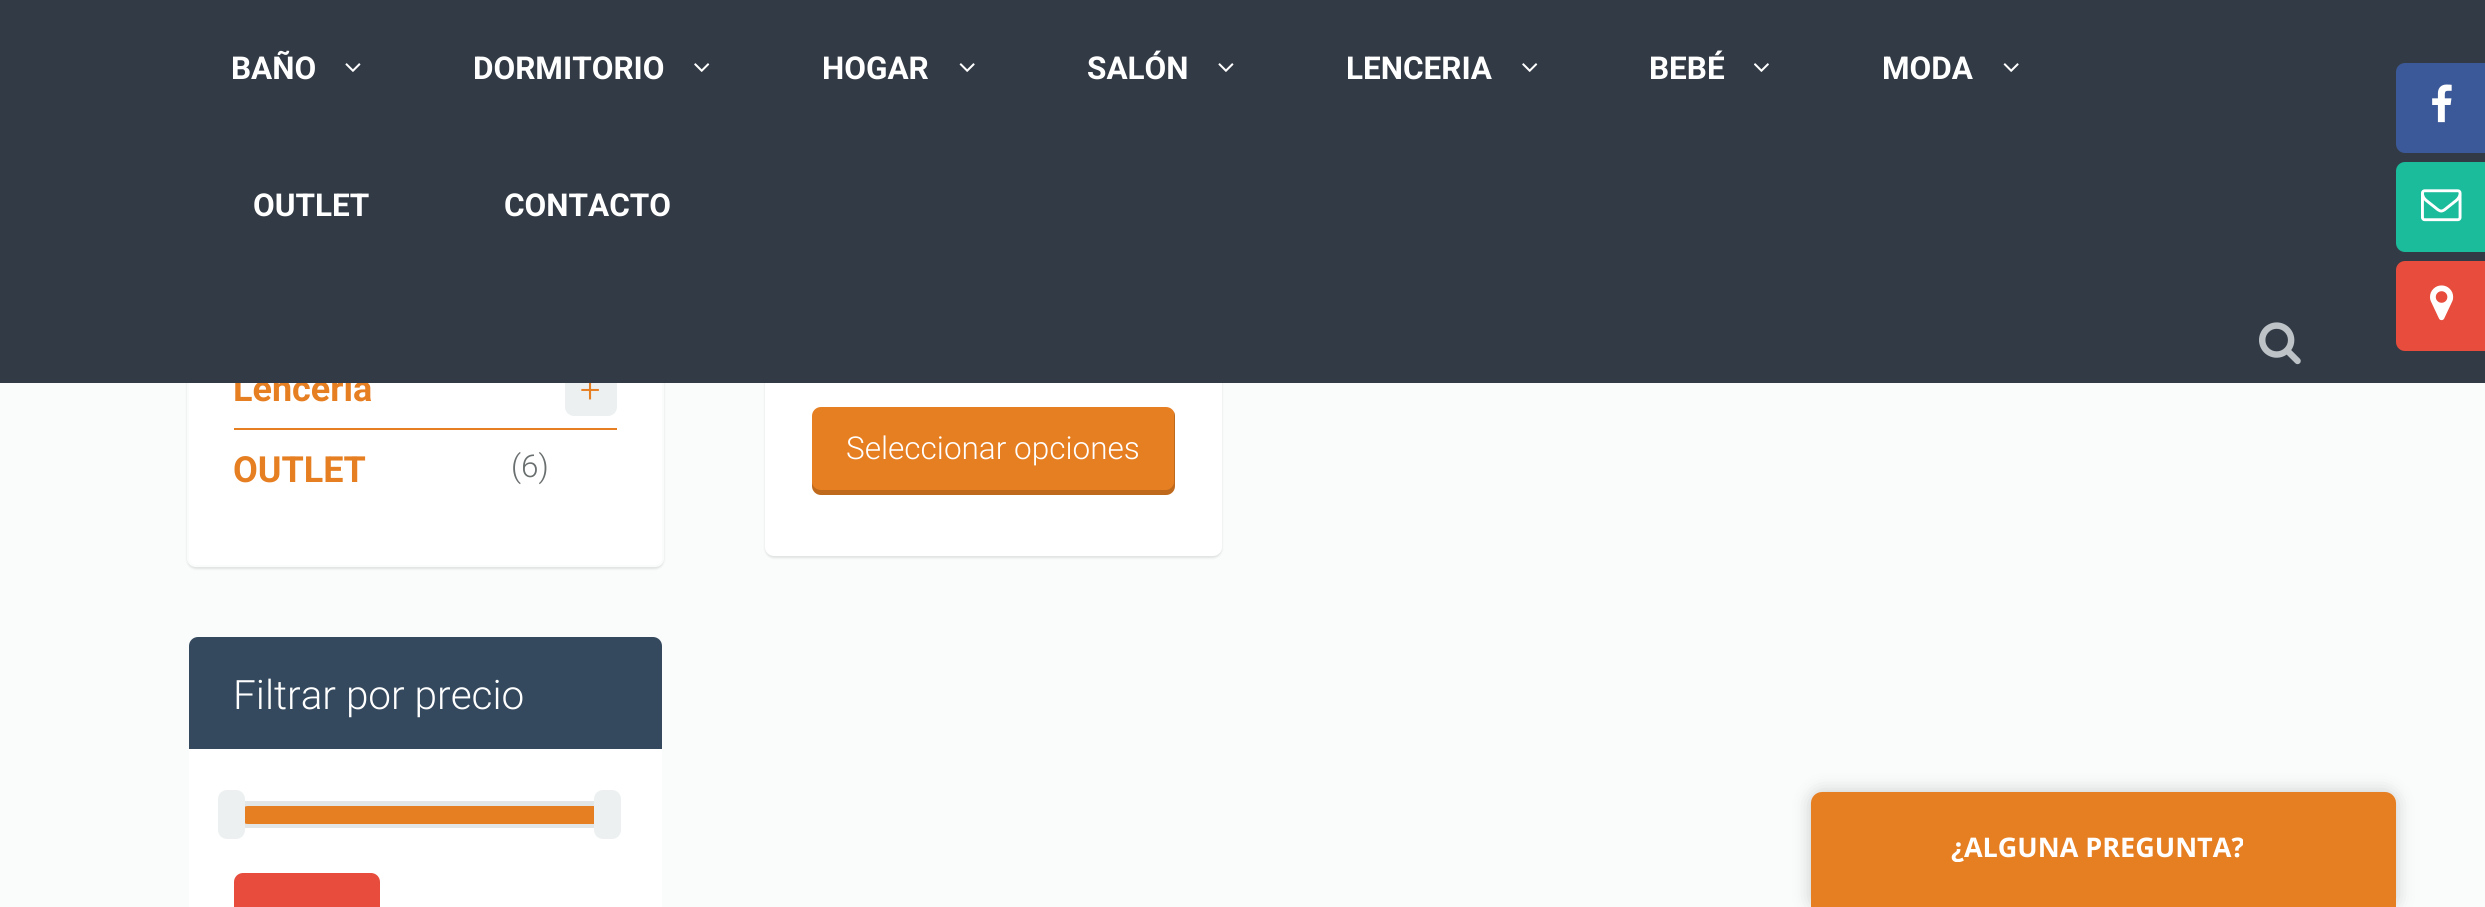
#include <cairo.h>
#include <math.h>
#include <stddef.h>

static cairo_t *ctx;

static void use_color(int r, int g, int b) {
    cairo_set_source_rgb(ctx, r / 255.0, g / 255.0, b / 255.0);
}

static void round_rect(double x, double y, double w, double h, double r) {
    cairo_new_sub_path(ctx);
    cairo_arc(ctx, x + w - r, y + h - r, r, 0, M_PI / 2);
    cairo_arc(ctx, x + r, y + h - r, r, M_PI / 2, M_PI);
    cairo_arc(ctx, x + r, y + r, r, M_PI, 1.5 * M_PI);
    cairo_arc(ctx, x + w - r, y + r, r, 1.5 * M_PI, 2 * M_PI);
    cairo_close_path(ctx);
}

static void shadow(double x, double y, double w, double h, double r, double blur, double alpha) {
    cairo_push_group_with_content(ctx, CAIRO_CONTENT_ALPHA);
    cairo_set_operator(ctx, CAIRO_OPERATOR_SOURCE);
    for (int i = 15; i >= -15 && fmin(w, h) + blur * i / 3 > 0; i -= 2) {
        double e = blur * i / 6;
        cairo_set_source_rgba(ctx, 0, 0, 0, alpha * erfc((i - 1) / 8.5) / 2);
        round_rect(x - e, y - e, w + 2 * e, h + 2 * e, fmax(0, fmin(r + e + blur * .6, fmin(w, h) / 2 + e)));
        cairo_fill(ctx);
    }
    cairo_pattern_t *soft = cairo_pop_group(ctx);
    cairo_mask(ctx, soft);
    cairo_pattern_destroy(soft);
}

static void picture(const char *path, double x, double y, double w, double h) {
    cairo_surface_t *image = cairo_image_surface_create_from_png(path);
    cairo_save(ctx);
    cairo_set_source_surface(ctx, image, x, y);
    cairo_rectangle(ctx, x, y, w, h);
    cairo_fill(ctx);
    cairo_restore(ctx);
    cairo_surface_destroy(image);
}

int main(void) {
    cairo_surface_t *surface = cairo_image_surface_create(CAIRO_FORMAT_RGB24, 2485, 907);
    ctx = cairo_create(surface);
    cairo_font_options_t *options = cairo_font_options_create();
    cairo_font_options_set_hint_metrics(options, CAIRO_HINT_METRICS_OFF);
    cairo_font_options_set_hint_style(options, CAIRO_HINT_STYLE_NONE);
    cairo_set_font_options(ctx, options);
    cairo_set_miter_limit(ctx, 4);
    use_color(250, 251, 251);
    cairo_paint(ctx);
    cairo_save(ctx);
    cairo_set_fill_rule(ctx, CAIRO_FILL_RULE_EVEN_ODD);
    cairo_new_path(ctx);
    cairo_move_to(ctx, 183, 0);
    cairo_line_to(ctx, 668, 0);
    cairo_line_to(ctx, 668, 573);
    cairo_line_to(ctx, 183, 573);
    cairo_close_path(ctx);
    cairo_move_to(ctx, 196, -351);
    cairo_line_to(ctx, 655, -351);
    cairo_curve_to(ctx, 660, -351, 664, -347, 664, -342);
    cairo_line_to(ctx, 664, 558);
    cairo_curve_to(ctx, 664, 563, 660, 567, 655, 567);
    cairo_line_to(ctx, 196, 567);
    cairo_curve_to(ctx, 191, 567, 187, 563, 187, 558);
    cairo_line_to(ctx, 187, -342);
    cairo_curve_to(ctx, 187, -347, 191, -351, 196, -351);
    cairo_close_path(ctx);
    cairo_clip(ctx);
    use_color(0, 0, 0);
    shadow(187, -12, 477, 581, 9, 1, 0.1);
    cairo_restore(ctx);
    use_color(255, 255, 255);
    cairo_new_path(ctx);
    cairo_move_to(ctx, 189, -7);
    cairo_line_to(ctx, 662, -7);
    cairo_line_to(ctx, 662, 558);
    cairo_curve_to(ctx, 662, 562, 659, 565, 655, 565);
    cairo_line_to(ctx, 196, 565);
    cairo_curve_to(ctx, 192, 565, 189, 562, 189, 558);
    cairo_close_path(ctx);
    cairo_fill(ctx);
    cairo_select_font_face(ctx, "Roboto", CAIRO_FONT_SLANT_NORMAL, CAIRO_FONT_WEIGHT_BOLD);
    cairo_set_font_size(ctx, 36);
    use_color(230, 126, 34);
    cairo_move_to(ctx, 233, 401);
    cairo_show_text(ctx, "Lenceria");
    use_color(236, 240, 241);
    round_rect(565, 365, 52, 51, 9);
    cairo_fill(ctx);
    cairo_select_font_face(ctx, "Roboto Light", CAIRO_FONT_SLANT_NORMAL, CAIRO_FONT_WEIGHT_NORMAL);
    use_color(230, 126, 34);
    cairo_move_to(ctx, 580, 402);
    cairo_show_text(ctx, "+");
    use_color(0, 0, 0);
    shadow(765, -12, 457, 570, 9, 1, 0.1);
    use_color(255, 255, 255);
    round_rect(766, -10, 455, 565, 8);
    cairo_fill_preserve(ctx);
    cairo_stroke(ctx);
    use_color(50, 58, 69);
    cairo_rectangle(ctx, 0, 0, 2485, 383);
    cairo_fill(ctx);
    cairo_select_font_face(ctx, "Roboto", CAIRO_FONT_SLANT_NORMAL, CAIRO_FONT_WEIGHT_BOLD);
    cairo_set_font_size(ctx, 31.5);
    use_color(255, 255, 255);
    cairo_move_to(ctx, 231, 79);
    cairo_show_text(ctx, "BAÑO");
    picture("img1.png", 345, 63, 16, 9);
    cairo_move_to(ctx, 473, 79);
    cairo_show_text(ctx, "DORMITORIO");
    picture("img2.png", 694, 63, 16, 9);
    cairo_move_to(ctx, 822, 79);
    cairo_show_text(ctx, "HOGAR");
    picture("img3.png", 959, 63, 16, 9);
    cairo_move_to(ctx, 1087, 79);
    cairo_show_text(ctx, "SALÓN");
    picture("img1.png", 1218, 63, 16, 9);
    cairo_move_to(ctx, 1346, 79);
    cairo_show_text(ctx, "LENCERIA");
    picture("img2.png", 1522, 63, 16, 9);
    cairo_move_to(ctx, 1649, 79);
    cairo_show_text(ctx, "BEBÉ");
    picture("img4.png", 1754, 63, 15, 9);
    cairo_move_to(ctx, 1882, 79);
    cairo_show_text(ctx, "MODA");
    picture("img3.png", 2003, 63, 16, 9);
    cairo_move_to(ctx, 253, 216);
    cairo_show_text(ctx, "OUTLET");
    cairo_move_to(ctx, 504, 216);
    cairo_show_text(ctx, "CONTACTO");
    picture("img5.png", 2259, 322, 42, 43);
    use_color(230, 126, 34);
    cairo_rectangle(ctx, 234, 428, 383, 2);
    cairo_fill(ctx);
    cairo_set_font_size(ctx, 36);
    cairo_move_to(ctx, 233, 482);
    cairo_show_text(ctx, "OUTLET");
    cairo_select_font_face(ctx, "Roboto Light", CAIRO_FONT_SLANT_NORMAL, CAIRO_FONT_WEIGHT_NORMAL);
    cairo_set_font_size(ctx, 31.5);
    use_color(105, 110, 110);
    cairo_move_to(ctx, 511, 477);
    cairo_show_text(ctx, "(6)");
    use_color(52, 73, 94);
    cairo_new_path(ctx);
    cairo_move_to(ctx, 198, 637);
    cairo_line_to(ctx, 653, 637);
    cairo_curve_to(ctx, 658, 637, 662, 641, 662, 646);
    cairo_line_to(ctx, 662, 749);
    cairo_line_to(ctx, 189, 749);
    cairo_line_to(ctx, 189, 646);
    cairo_curve_to(ctx, 189, 641, 193, 637, 198, 637);
    cairo_close_path(ctx);
    cairo_fill(ctx);
    cairo_set_font_size(ctx, 40.5);
    use_color(255, 255, 255);
    cairo_move_to(ctx, 233, 709);
    cairo_show_text(ctx, "Filtrar por precio");
    cairo_rectangle(ctx, 189, 749, 473, 158);
    cairo_fill(ctx);
    use_color(236, 240, 241);
    cairo_rectangle(ctx, 245, 806, 3, 1);
    cairo_fill(ctx);
    cairo_rectangle(ctx, 236.5, 803.5, 378, 22);
    use_color(226, 230, 231);
    cairo_set_line_width(ctx, 5);
    cairo_stroke(ctx);
    use_color(230, 126, 34);
    round_rect(239, 806, 373, 18, 9);
    cairo_fill(ctx);
    use_color(236, 240, 241);
    round_rect(218, 790, 27, 49, 9);
    cairo_fill(ctx);
    round_rect(594, 790, 27, 49, 9);
    cairo_fill(ctx);
    use_color(231, 76, 60);
    round_rect(234, 873, 146, 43, 9);
    cairo_fill(ctx);
    use_color(230, 126, 34);
    round_rect(812, 407, 363, 88, 9);
    cairo_fill(ctx);
    cairo_set_source_rgba(ctx, 0, 0, 0, 0.17);
    cairo_new_path(ctx);
    cairo_move_to(ctx, 812, 482);
    cairo_line_to(ctx, 812, 486);
    cairo_curve_to(ctx, 812, 491, 816, 495, 821, 495);
    cairo_line_to(ctx, 1166, 495);
    cairo_curve_to(ctx, 1171, 495, 1175, 491, 1175, 486);
    cairo_line_to(ctx, 1175, 416);
    cairo_curve_to(ctx, 1175, 415, 1175, 413, 1174, 412);
    cairo_line_to(ctx, 1174, 482);
    cairo_curve_to(ctx, 1174, 486, 1170, 490, 1166, 490);
    cairo_line_to(ctx, 821, 490);
    cairo_curve_to(ctx, 816, 490, 812, 486, 812, 482);
    cairo_close_path(ctx);
    cairo_fill(ctx);
    cairo_set_font_size(ctx, 31.5);
    use_color(255, 255, 255);
    cairo_move_to(ctx, 846, 459);
    cairo_show_text(ctx, "Seleccionar opciones");
    use_color(59, 89, 152);
    cairo_new_path(ctx);
    cairo_move_to(ctx, 2405, 63);
    cairo_line_to(ctx, 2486, 63);
    cairo_line_to(ctx, 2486, 153);
    cairo_line_to(ctx, 2405, 153);
    cairo_curve_to(ctx, 2400, 153, 2396, 149, 2396, 144);
    cairo_line_to(ctx, 2396, 72);
    cairo_curve_to(ctx, 2396, 67, 2400, 63, 2405, 63);
    cairo_close_path(ctx);
    cairo_fill(ctx);
    picture("img6.png", 2432, 84, 20, 39);
    use_color(26, 188, 156);
    cairo_new_path(ctx);
    cairo_move_to(ctx, 2405, 162);
    cairo_line_to(ctx, 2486, 162);
    cairo_line_to(ctx, 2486, 252);
    cairo_line_to(ctx, 2405, 252);
    cairo_curve_to(ctx, 2400, 252, 2396, 248, 2396, 243);
    cairo_line_to(ctx, 2396, 171);
    cairo_curve_to(ctx, 2396, 166, 2400, 162, 2405, 162);
    cairo_close_path(ctx);
    cairo_fill(ctx);
    picture("img7.png", 2421, 189, 41, 33);
    use_color(231, 76, 60);
    cairo_new_path(ctx);
    cairo_move_to(ctx, 2405, 261);
    cairo_line_to(ctx, 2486, 261);
    cairo_line_to(ctx, 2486, 351);
    cairo_line_to(ctx, 2405, 351);
    cairo_curve_to(ctx, 2400, 351, 2396, 347, 2396, 342);
    cairo_line_to(ctx, 2396, 270);
    cairo_curve_to(ctx, 2396, 265, 2400, 261, 2405, 261);
    cairo_close_path(ctx);
    cairo_fill(ctx);
    picture("img8.png", 2430, 285, 24, 36);
    use_color(0, 0, 0);
    shadow(1811, 792, 585, 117, 11, 9, 0.2);
    use_color(230, 126, 34);
    cairo_new_path(ctx);
    cairo_move_to(ctx, 1822, 792);
    cairo_line_to(ctx, 2385, 792);
    cairo_curve_to(ctx, 2391, 792, 2396, 797, 2396, 803);
    cairo_line_to(ctx, 2396, 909);
    cairo_line_to(ctx, 1811, 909);
    cairo_line_to(ctx, 1811, 803);
    cairo_curve_to(ctx, 1811, 797, 1816, 792, 1822, 792);
    cairo_close_path(ctx);
    cairo_fill(ctx);
    cairo_save(ctx);
    cairo_rectangle(ctx, 1951, 835, 292, 27);
    cairo_clip(ctx);
    cairo_select_font_face(ctx, "Open Sans", CAIRO_FONT_SLANT_NORMAL, CAIRO_FONT_WEIGHT_BOLD);
    cairo_set_font_size(ctx, 27);
    use_color(255, 255, 255);
    cairo_move_to(ctx, 1951, 857);
    cairo_show_text(ctx, "¿ALGUNA PREGUNTA?");
    cairo_restore(ctx);
    cairo_surface_write_to_png(surface, "result.png");
    cairo_font_options_destroy(options);
    cairo_destroy(ctx);
    cairo_surface_destroy(surface);
    return 0;
}
